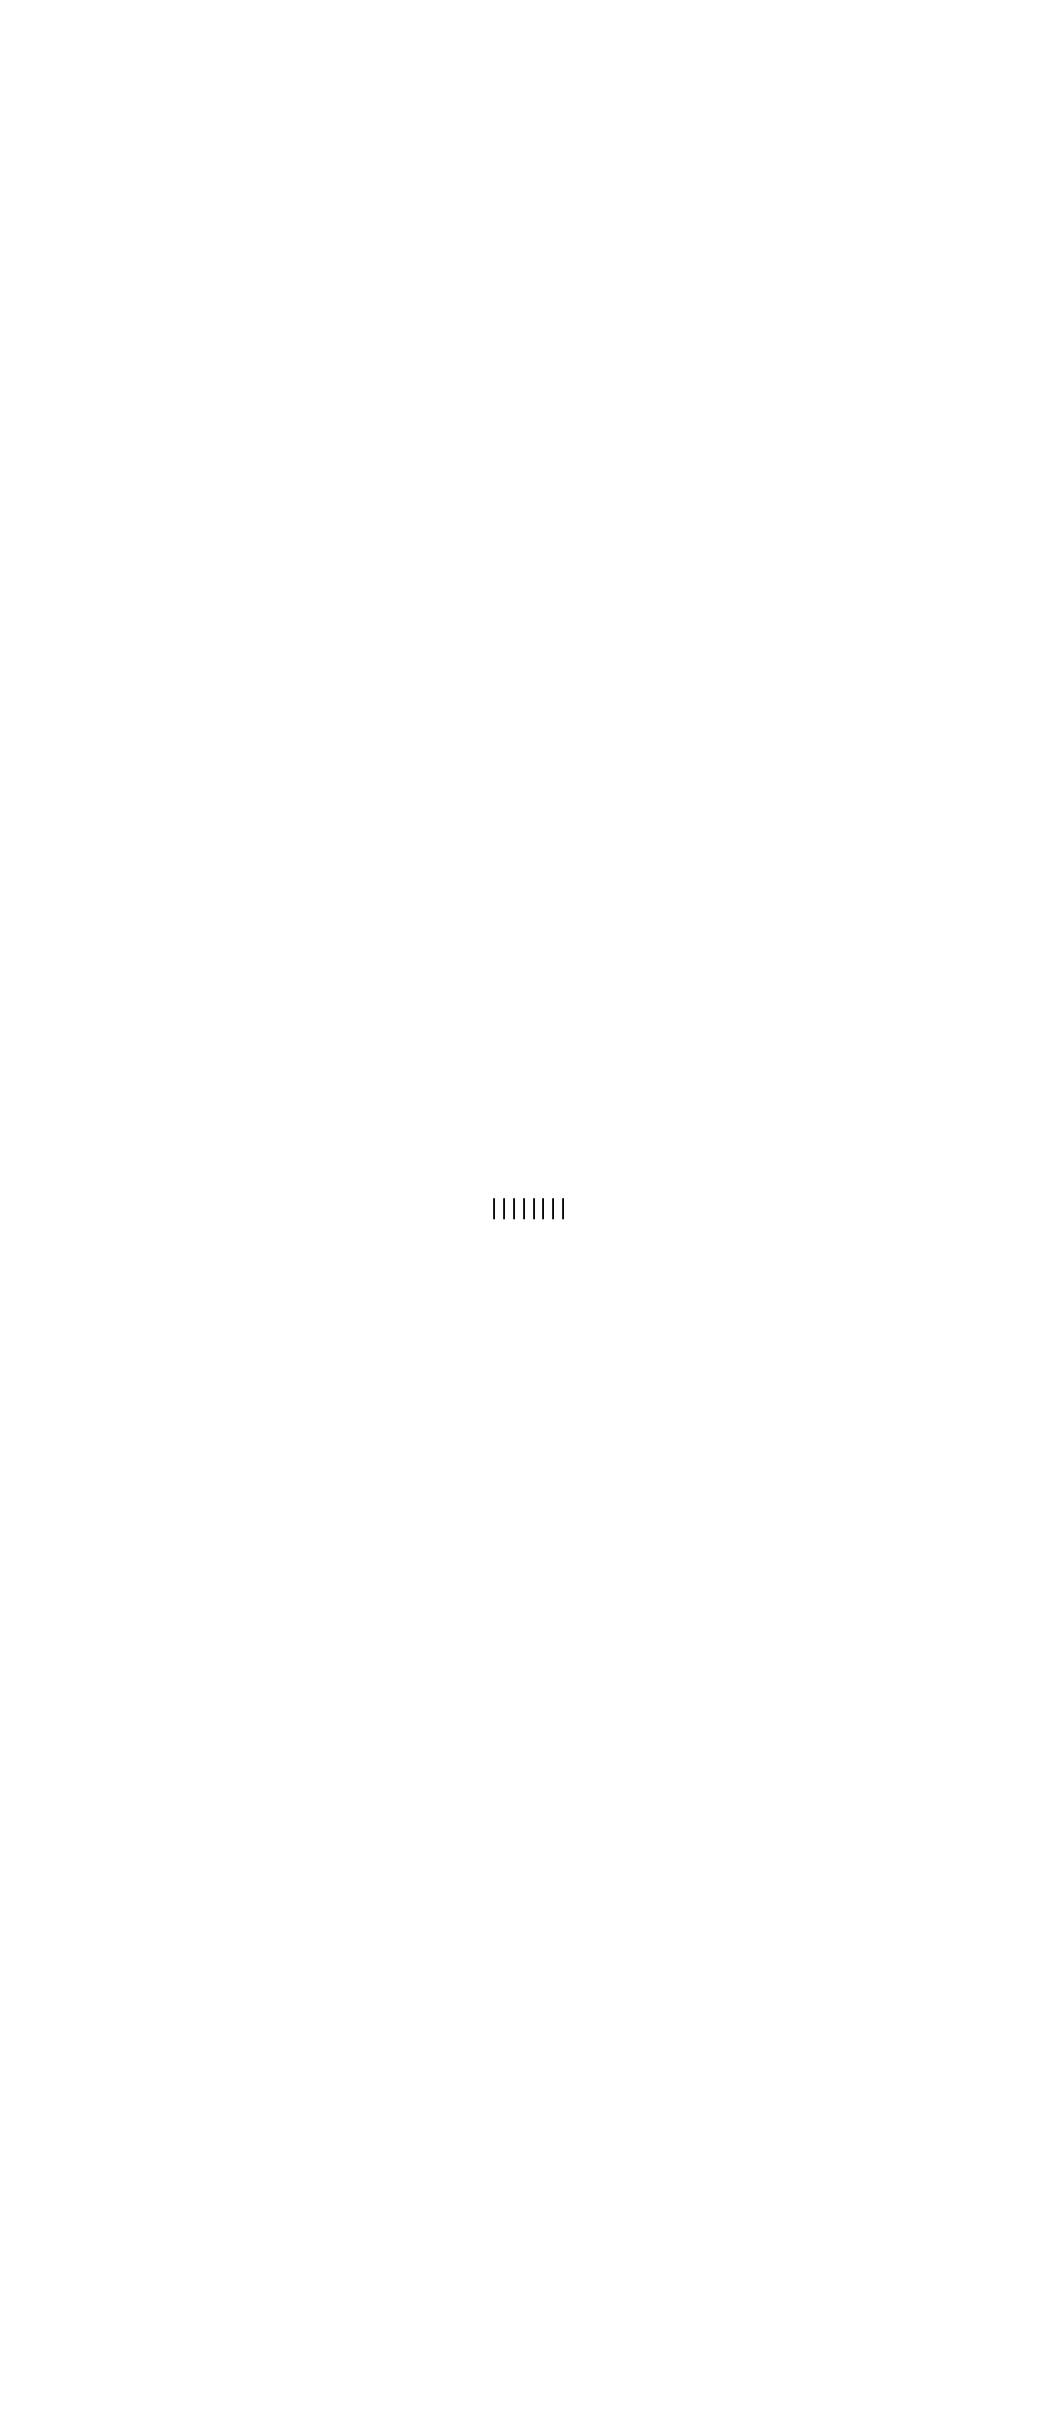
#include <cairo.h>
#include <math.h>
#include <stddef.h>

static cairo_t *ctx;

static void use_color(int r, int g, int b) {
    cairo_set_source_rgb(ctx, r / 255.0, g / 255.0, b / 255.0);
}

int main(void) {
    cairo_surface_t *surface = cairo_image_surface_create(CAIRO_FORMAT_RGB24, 1057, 2415);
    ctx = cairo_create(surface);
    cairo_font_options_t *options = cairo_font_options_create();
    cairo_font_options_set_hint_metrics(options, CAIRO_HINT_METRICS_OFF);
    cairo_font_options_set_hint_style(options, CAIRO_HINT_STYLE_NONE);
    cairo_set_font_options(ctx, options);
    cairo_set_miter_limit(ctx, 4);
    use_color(255, 255, 255);
    cairo_paint(ctx);
    cairo_select_font_face(ctx, "Roboto", CAIRO_FONT_SLANT_NORMAL, CAIRO_FONT_WEIGHT_NORMAL);
    cairo_set_font_size(ctx, 25);
    use_color(0, 0, 0);
    cairo_move_to(ctx, 491, 1216);
    cairo_show_text(ctx, "|");
    cairo_move_to(ctx, 501, 1216);
    cairo_show_text(ctx, "|");
    cairo_move_to(ctx, 511, 1216);
    cairo_show_text(ctx, "|");
    cairo_move_to(ctx, 521, 1216);
    cairo_show_text(ctx, "|");
    cairo_move_to(ctx, 531, 1216);
    cairo_show_text(ctx, "|");
    cairo_move_to(ctx, 540, 1216);
    cairo_show_text(ctx, "|");
    cairo_move_to(ctx, 550, 1216);
    cairo_show_text(ctx, "|");
    cairo_move_to(ctx, 560, 1216);
    cairo_show_text(ctx, "|");
    cairo_surface_write_to_png(surface, "result.png");
    cairo_font_options_destroy(options);
    cairo_destroy(ctx);
    cairo_surface_destroy(surface);
    return 0;
}
